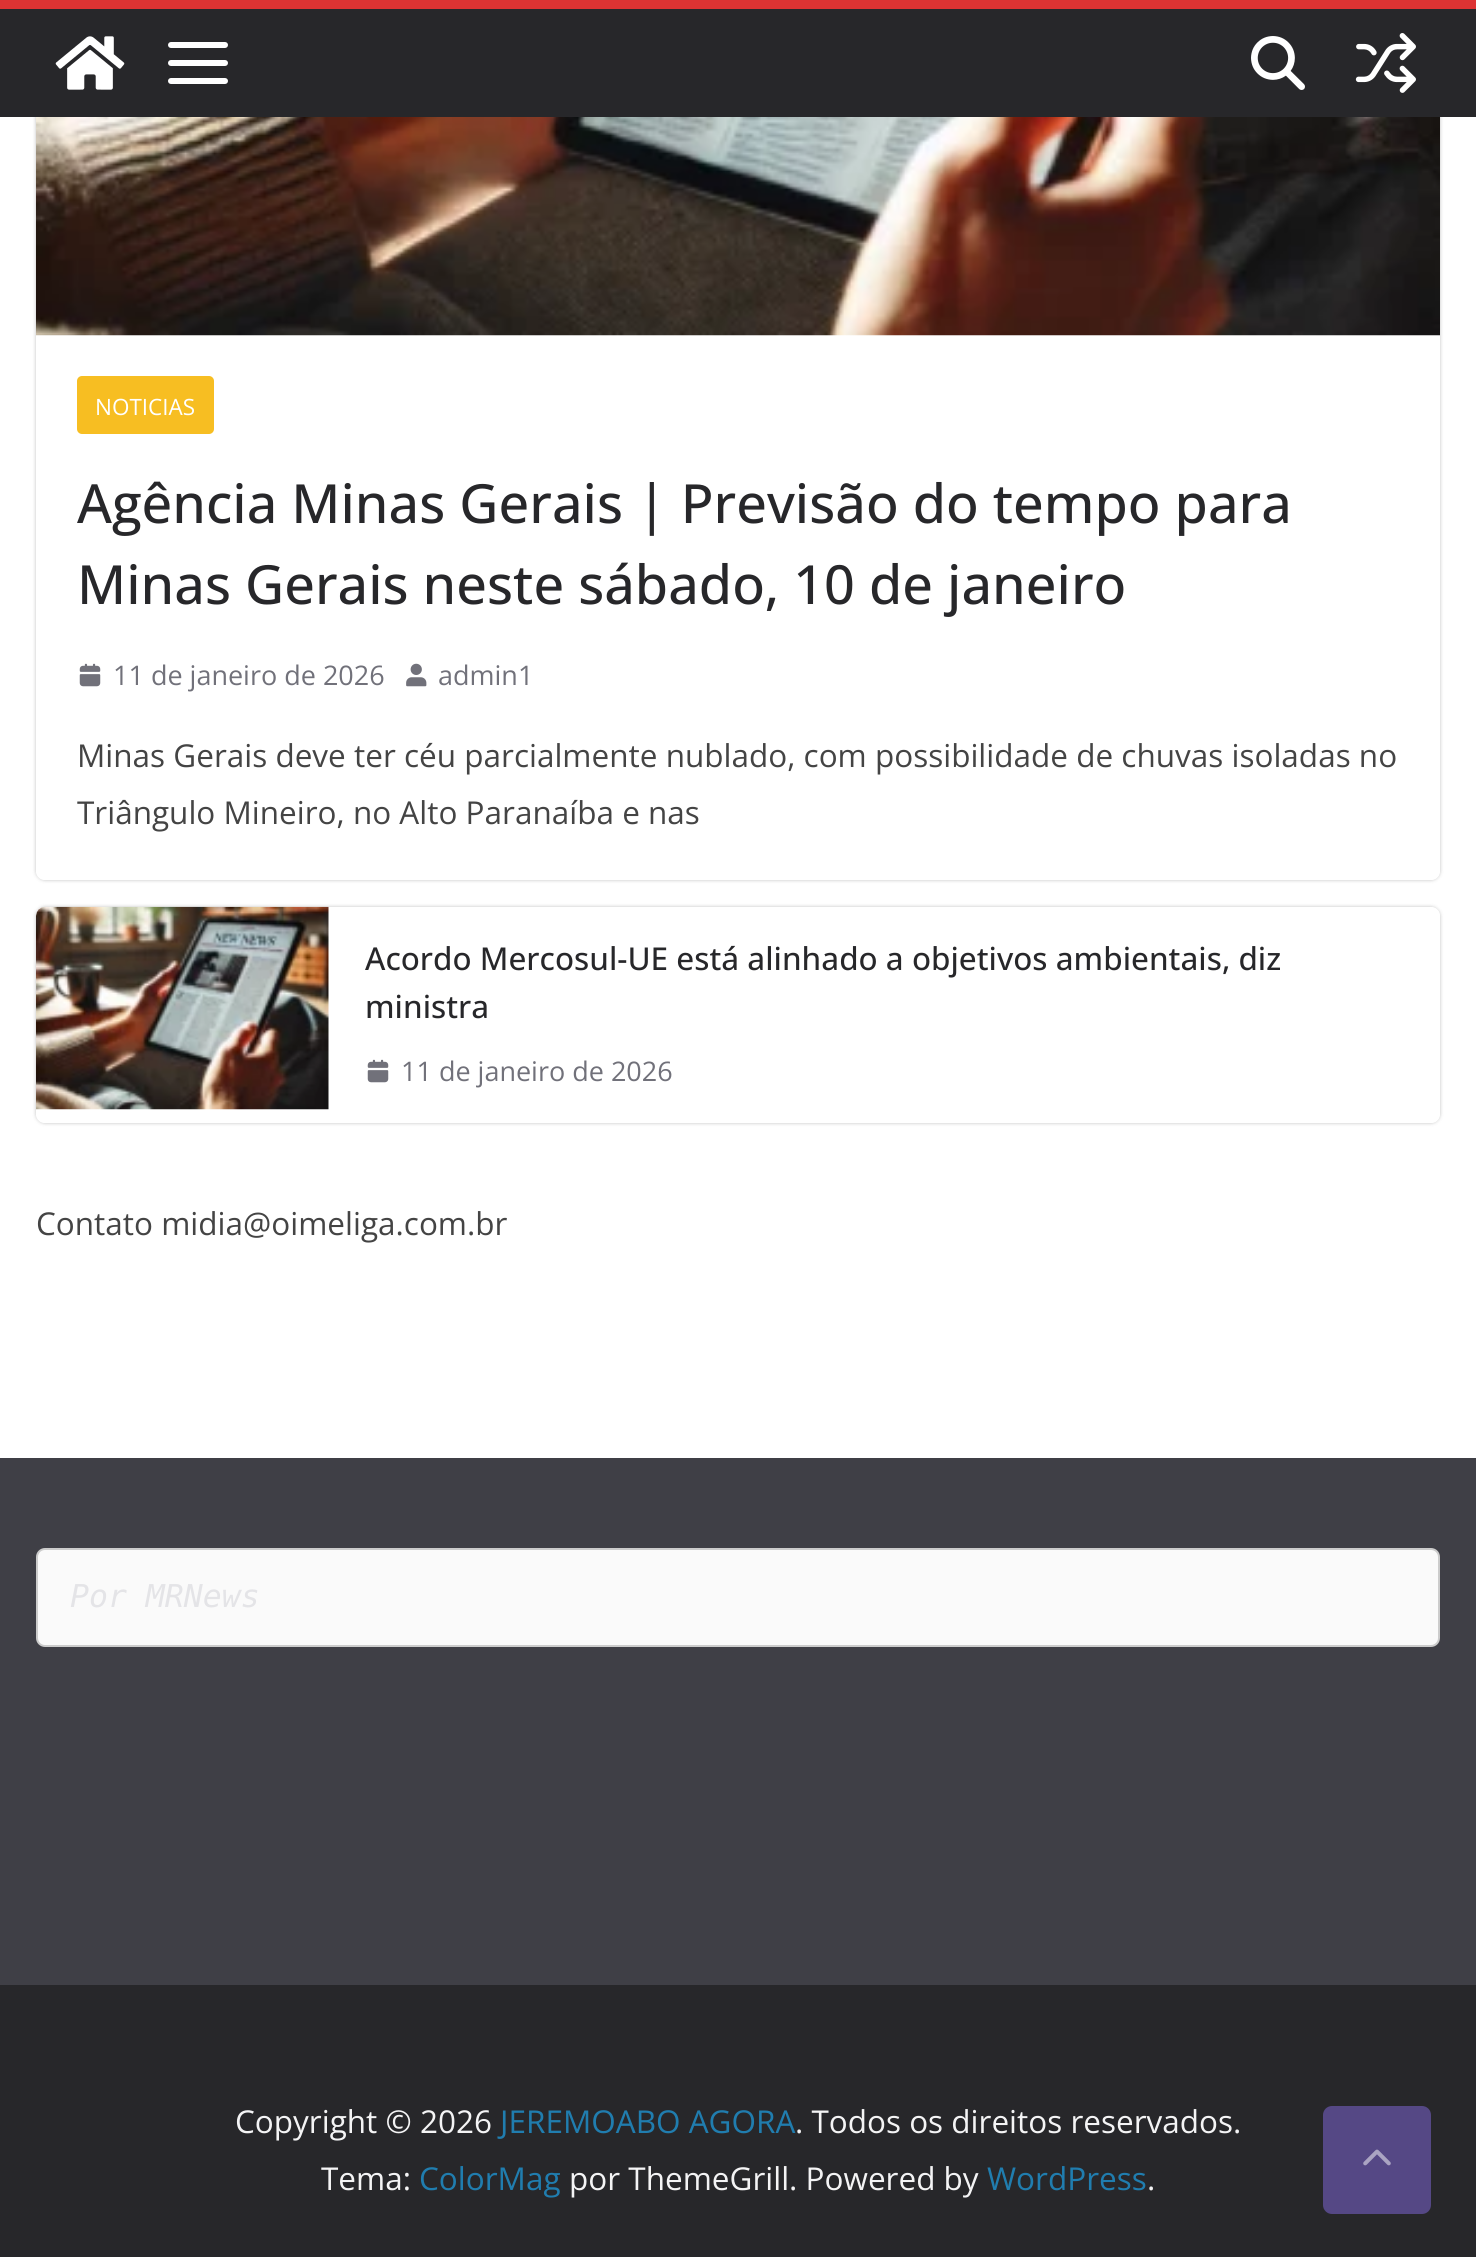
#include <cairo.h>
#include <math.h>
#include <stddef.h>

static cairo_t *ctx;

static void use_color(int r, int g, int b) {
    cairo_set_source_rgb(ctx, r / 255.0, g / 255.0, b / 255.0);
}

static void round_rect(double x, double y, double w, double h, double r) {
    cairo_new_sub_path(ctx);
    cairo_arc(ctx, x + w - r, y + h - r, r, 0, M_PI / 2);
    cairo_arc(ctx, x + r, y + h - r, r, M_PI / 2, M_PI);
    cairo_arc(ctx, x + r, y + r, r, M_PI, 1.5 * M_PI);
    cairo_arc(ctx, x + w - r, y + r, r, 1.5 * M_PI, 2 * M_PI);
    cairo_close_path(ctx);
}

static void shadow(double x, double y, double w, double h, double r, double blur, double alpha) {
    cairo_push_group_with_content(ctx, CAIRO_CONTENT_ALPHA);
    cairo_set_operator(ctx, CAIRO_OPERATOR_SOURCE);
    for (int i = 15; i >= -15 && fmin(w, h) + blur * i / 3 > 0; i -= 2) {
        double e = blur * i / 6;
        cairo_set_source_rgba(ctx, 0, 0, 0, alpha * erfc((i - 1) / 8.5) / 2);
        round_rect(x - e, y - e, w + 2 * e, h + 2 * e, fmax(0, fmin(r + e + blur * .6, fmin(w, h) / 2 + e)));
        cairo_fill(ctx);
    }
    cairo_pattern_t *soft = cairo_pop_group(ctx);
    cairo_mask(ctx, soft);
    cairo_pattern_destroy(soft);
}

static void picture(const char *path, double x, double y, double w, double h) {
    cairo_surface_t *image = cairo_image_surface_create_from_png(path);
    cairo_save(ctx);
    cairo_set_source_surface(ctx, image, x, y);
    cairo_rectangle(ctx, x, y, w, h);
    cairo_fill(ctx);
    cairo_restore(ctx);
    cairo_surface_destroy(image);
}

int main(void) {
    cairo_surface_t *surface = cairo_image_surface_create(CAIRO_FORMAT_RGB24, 1476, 2257);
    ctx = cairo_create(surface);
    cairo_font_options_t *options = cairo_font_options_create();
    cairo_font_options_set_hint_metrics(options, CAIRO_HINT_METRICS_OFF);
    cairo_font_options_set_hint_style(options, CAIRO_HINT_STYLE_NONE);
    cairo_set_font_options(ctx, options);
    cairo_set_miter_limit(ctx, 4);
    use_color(255, 255, 255);
    cairo_paint(ctx);
    cairo_save(ctx);
    cairo_set_fill_rule(ctx, CAIRO_FILL_RULE_EVEN_ODD);
    cairo_new_path(ctx);
    cairo_move_to(ctx, 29, 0);
    cairo_line_to(ctx, 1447, 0);
    cairo_line_to(ctx, 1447, 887);
    cairo_line_to(ctx, 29, 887);
    cairo_close_path(ctx);
    cairo_move_to(ctx, 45, -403);
    cairo_line_to(ctx, 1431, -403);
    cairo_curve_to(ctx, 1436, -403, 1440, -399, 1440, -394);
    cairo_line_to(ctx, 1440, 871);
    cairo_curve_to(ctx, 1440, 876, 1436, 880, 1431, 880);
    cairo_line_to(ctx, 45, 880);
    cairo_curve_to(ctx, 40, 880, 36, 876, 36, 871);
    cairo_line_to(ctx, 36, -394);
    cairo_curve_to(ctx, 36, -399, 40, -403, 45, -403);
    cairo_close_path(ctx);
    cairo_clip(ctx);
    use_color(0, 0, 0);
    shadow(36, -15, 1404, 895, 9, 2, 0.24);
    cairo_restore(ctx);
    use_color(39, 39, 42);
    cairo_rectangle(ctx, 0, 9, 1476, 108);
    cairo_fill(ctx);
    use_color(221, 51, 51);
    cairo_rectangle(ctx, 0, 0, 1476, 9);
    cairo_fill(ctx);
    picture("img1.png", 55, 36, 70, 54);
    picture("img2.png", 168, 42, 60, 42);
    picture("img3.png", 1251, 36, 54, 54);
    picture("img4.png", 1355, 33, 61, 60);
    picture("img5.png", 36, 117, 1404, 219);
    use_color(247, 190, 34);
    round_rect(77, 376, 137, 58, 5);
    cairo_fill(ctx);
    cairo_select_font_face(ctx, "Open Sans", CAIRO_FONT_SLANT_NORMAL, CAIRO_FONT_WEIGHT_NORMAL);
    cairo_set_font_size(ctx, 22.5);
    use_color(255, 255, 255);
    cairo_move_to(ctx, 95, 415);
    cairo_show_text(ctx, "NOTICIAS");
    cairo_select_font_face(ctx, "Open Sans Medium", CAIRO_FONT_SLANT_NORMAL, CAIRO_FONT_WEIGHT_NORMAL);
    cairo_set_font_size(ctx, 54);
    use_color(39, 39, 42);
    cairo_move_to(ctx, 77, 523);
    cairo_show_text(ctx, "Agência Minas Gerais | Previsão do tempo para");
    cairo_move_to(ctx, 77, 604);
    cairo_show_text(ctx, "Minas Gerais neste sábado, 10 de janeiro");
    picture("img6.png", 79, 663, 22, 24);
    cairo_select_font_face(ctx, "Open Sans", CAIRO_FONT_SLANT_NORMAL, CAIRO_FONT_WEIGHT_NORMAL);
    cairo_set_font_size(ctx, 27);
    use_color(113, 113, 122);
    cairo_move_to(ctx, 113, 685);
    cairo_show_text(ctx, "11 de janeiro de 2026");
    picture("img7.png", 406, 663, 21, 24);
    cairo_move_to(ctx, 438, 685);
    cairo_show_text(ctx, "admin1");
    cairo_set_font_size(ctx, 31.5);
    use_color(68, 68, 68);
    cairo_move_to(ctx, 77, 767);
    cairo_show_text(ctx, "Minas Gerais deve ter céu parcialmente nublado, com possibilidade de chuvas isoladas no");
    cairo_move_to(ctx, 77, 824);
    cairo_show_text(ctx, "Triângulo Mineiro, no Alto Paranaíba e nas");
    cairo_save(ctx);
    cairo_set_fill_rule(ctx, CAIRO_FILL_RULE_EVEN_ODD);
    cairo_new_path(ctx);
    cairo_move_to(ctx, 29, 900);
    cairo_line_to(ctx, 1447, 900);
    cairo_line_to(ctx, 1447, 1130);
    cairo_line_to(ctx, 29, 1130);
    cairo_close_path(ctx);
    cairo_move_to(ctx, 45, 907);
    cairo_line_to(ctx, 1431, 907);
    cairo_curve_to(ctx, 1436, 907, 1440, 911, 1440, 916);
    cairo_line_to(ctx, 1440, 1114);
    cairo_curve_to(ctx, 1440, 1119, 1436, 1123, 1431, 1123);
    cairo_line_to(ctx, 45, 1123);
    cairo_curve_to(ctx, 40, 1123, 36, 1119, 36, 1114);
    cairo_line_to(ctx, 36, 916);
    cairo_curve_to(ctx, 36, 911, 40, 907, 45, 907);
    cairo_close_path(ctx);
    cairo_clip(ctx);
    use_color(0, 0, 0);
    shadow(36, 907, 1404, 216, 9, 2, 0.24);
    cairo_restore(ctx);
    picture("img8.png", 36, 906, 293, 204);
    cairo_select_font_face(ctx, "Open Sans Medium", CAIRO_FONT_SLANT_NORMAL, CAIRO_FONT_WEIGHT_NORMAL);
    use_color(39, 39, 42);
    cairo_move_to(ctx, 365, 970);
    cairo_show_text(ctx, "Acordo Mercosul-UE está alinhado a objetivos ambientais, diz");
    cairo_move_to(ctx, 365, 1018);
    cairo_show_text(ctx, "ministra");
    picture("img6.png", 367, 1059, 22, 24);
    cairo_select_font_face(ctx, "Open Sans", CAIRO_FONT_SLANT_NORMAL, CAIRO_FONT_WEIGHT_NORMAL);
    cairo_set_font_size(ctx, 27);
    use_color(113, 113, 122);
    cairo_move_to(ctx, 401, 1081);
    cairo_show_text(ctx, "11 de janeiro de 2026");
    cairo_set_font_size(ctx, 31.5);
    use_color(68, 68, 68);
    cairo_move_to(ctx, 36, 1235);
    cairo_show_text(ctx, "Contato midia@oimeliga.com.br");
    use_color(63, 63, 70);
    cairo_rectangle(ctx, 0, 1458, 1476, 527);
    cairo_fill(ctx);
    use_color(250, 250, 250);
    round_rect(37, 1549, 1402, 97, 8);
    cairo_fill_preserve(ctx);
    use_color(204, 204, 204);
    cairo_stroke(ctx);
    cairo_select_font_face(ctx, "DejaVu Sans Mono", CAIRO_FONT_SLANT_ITALIC, CAIRO_FONT_WEIGHT_NORMAL);
    use_color(228, 228, 231);
    cairo_move_to(ctx, 70, 1607);
    cairo_show_text(ctx, "Por MRNews");
    use_color(39, 39, 42);
    cairo_rectangle(ctx, 0, 1985, 1476, 272);
    cairo_fill(ctx);
    cairo_select_font_face(ctx, "Open Sans", CAIRO_FONT_SLANT_NORMAL, CAIRO_FONT_WEIGHT_NORMAL);
    use_color(244, 244, 245);
    cairo_move_to(ctx, 235, 2133);
    cairo_show_text(ctx, "Copyright © 2026");
    use_color(32, 125, 175);
    cairo_move_to(ctx, 500, 2133);
    cairo_show_text(ctx, "JEREMOABO AGORA");
    use_color(244, 244, 245);
    cairo_move_to(ctx, 795, 2133);
    cairo_show_text(ctx, ". Todos os direitos reservados.");
    cairo_move_to(ctx, 321, 2190);
    cairo_show_text(ctx, "Tema:");
    use_color(32, 125, 175);
    cairo_move_to(ctx, 419, 2190);
    cairo_show_text(ctx, "ColorMag");
    use_color(244, 244, 245);
    cairo_move_to(ctx, 569, 2190);
    cairo_show_text(ctx, "por ThemeGrill. Powered by");
    use_color(32, 125, 175);
    cairo_move_to(ctx, 987, 2190);
    cairo_show_text(ctx, "WordPress");
    use_color(244, 244, 245);
    cairo_move_to(ctx, 1147, 2190);
    cairo_show_text(ctx, ".");
    use_color(85, 72, 133);
    round_rect(1323, 2106, 108, 108, 9);
    cairo_fill(ctx);
    picture("img9.png", 1363, 2149, 28, 17);
    cairo_surface_write_to_png(surface, "result.png");
    cairo_font_options_destroy(options);
    cairo_destroy(ctx);
    cairo_surface_destroy(surface);
    return 0;
}
